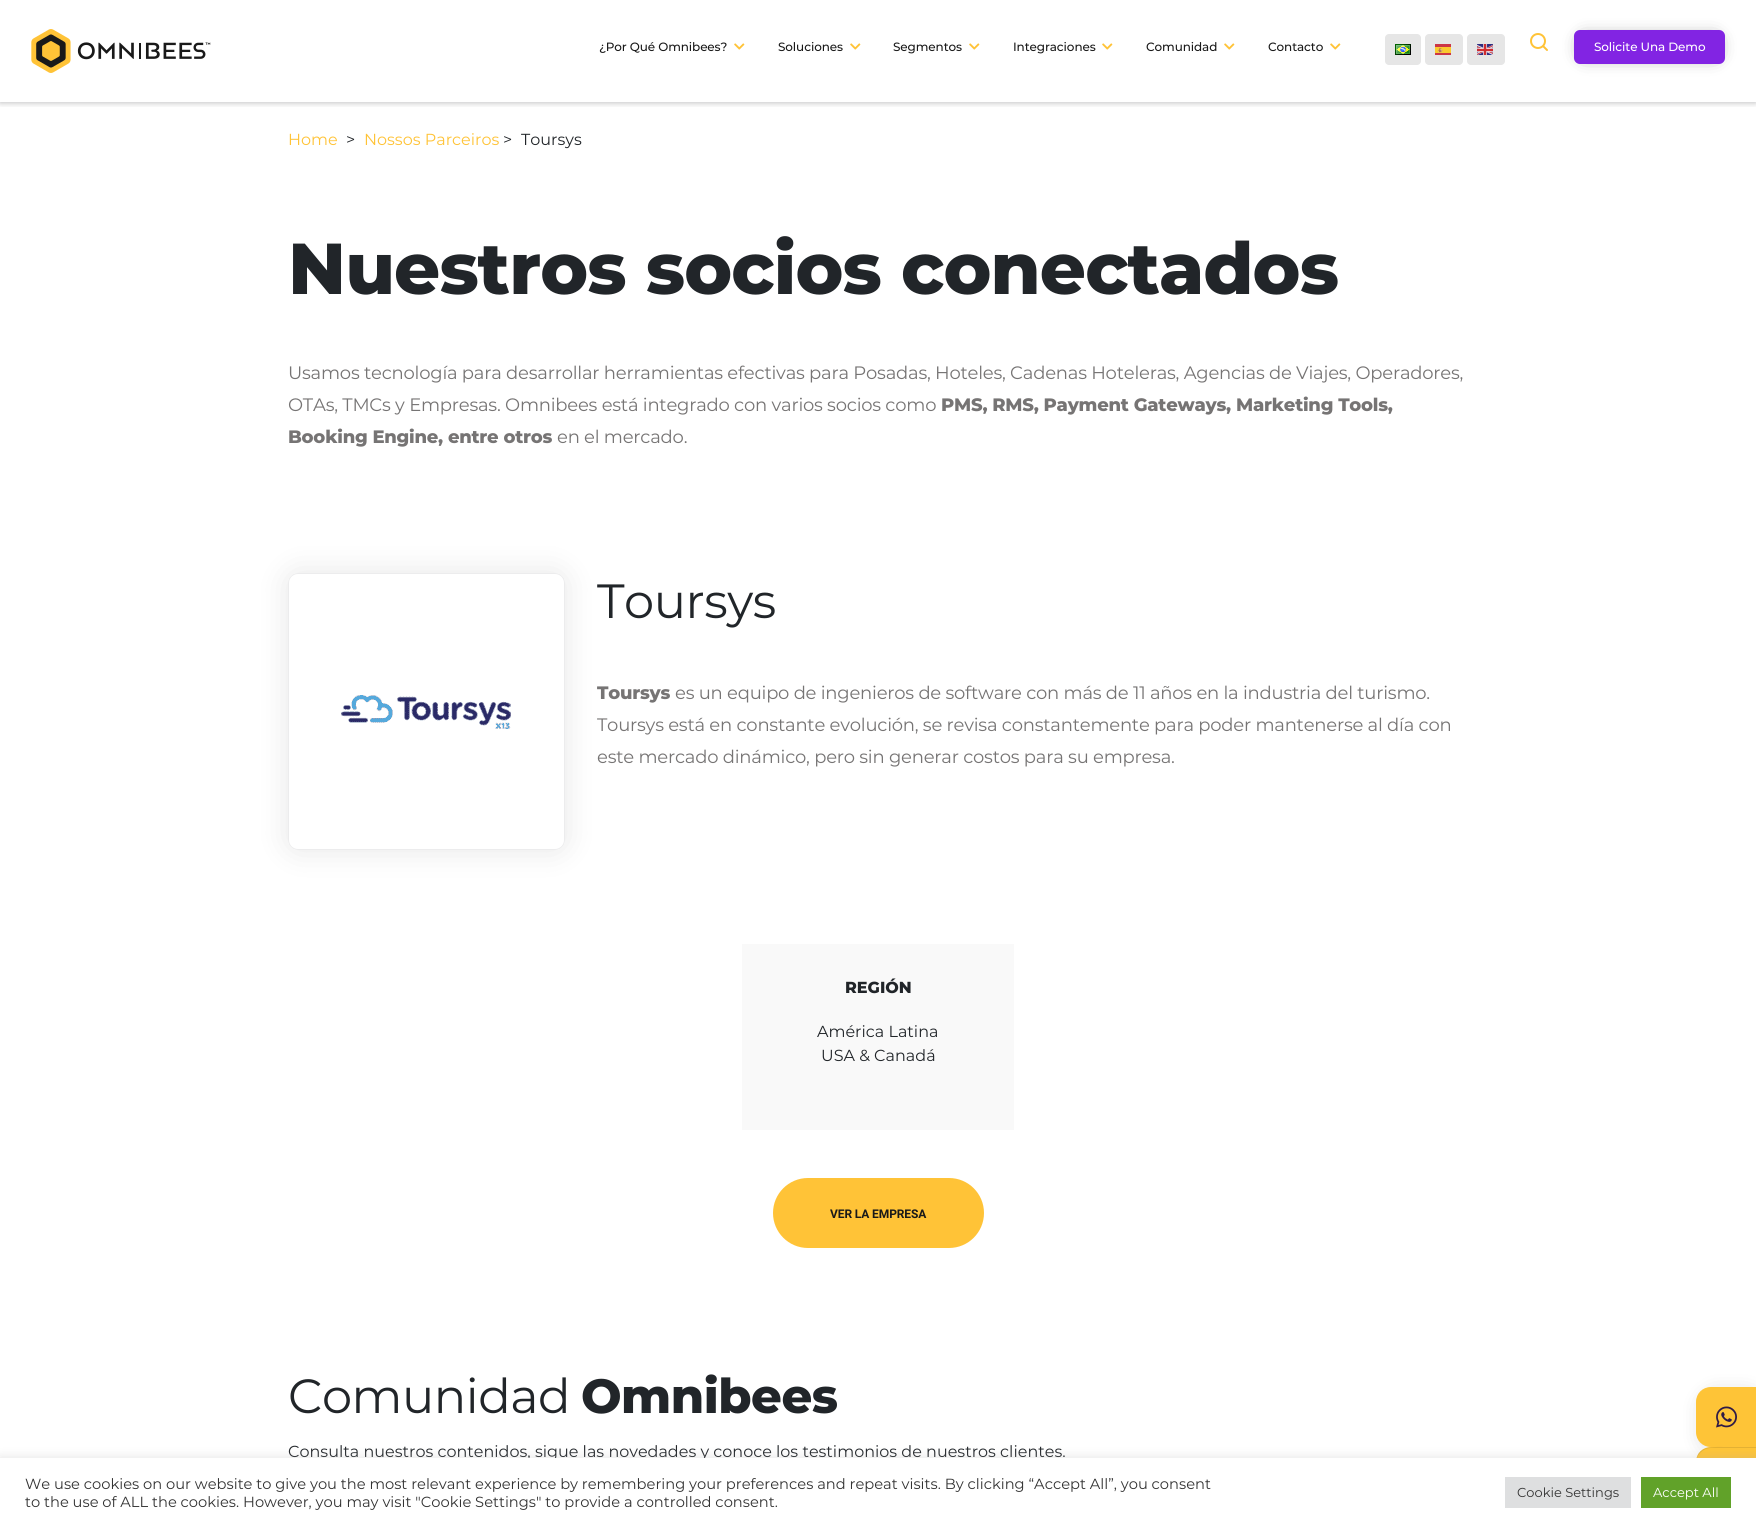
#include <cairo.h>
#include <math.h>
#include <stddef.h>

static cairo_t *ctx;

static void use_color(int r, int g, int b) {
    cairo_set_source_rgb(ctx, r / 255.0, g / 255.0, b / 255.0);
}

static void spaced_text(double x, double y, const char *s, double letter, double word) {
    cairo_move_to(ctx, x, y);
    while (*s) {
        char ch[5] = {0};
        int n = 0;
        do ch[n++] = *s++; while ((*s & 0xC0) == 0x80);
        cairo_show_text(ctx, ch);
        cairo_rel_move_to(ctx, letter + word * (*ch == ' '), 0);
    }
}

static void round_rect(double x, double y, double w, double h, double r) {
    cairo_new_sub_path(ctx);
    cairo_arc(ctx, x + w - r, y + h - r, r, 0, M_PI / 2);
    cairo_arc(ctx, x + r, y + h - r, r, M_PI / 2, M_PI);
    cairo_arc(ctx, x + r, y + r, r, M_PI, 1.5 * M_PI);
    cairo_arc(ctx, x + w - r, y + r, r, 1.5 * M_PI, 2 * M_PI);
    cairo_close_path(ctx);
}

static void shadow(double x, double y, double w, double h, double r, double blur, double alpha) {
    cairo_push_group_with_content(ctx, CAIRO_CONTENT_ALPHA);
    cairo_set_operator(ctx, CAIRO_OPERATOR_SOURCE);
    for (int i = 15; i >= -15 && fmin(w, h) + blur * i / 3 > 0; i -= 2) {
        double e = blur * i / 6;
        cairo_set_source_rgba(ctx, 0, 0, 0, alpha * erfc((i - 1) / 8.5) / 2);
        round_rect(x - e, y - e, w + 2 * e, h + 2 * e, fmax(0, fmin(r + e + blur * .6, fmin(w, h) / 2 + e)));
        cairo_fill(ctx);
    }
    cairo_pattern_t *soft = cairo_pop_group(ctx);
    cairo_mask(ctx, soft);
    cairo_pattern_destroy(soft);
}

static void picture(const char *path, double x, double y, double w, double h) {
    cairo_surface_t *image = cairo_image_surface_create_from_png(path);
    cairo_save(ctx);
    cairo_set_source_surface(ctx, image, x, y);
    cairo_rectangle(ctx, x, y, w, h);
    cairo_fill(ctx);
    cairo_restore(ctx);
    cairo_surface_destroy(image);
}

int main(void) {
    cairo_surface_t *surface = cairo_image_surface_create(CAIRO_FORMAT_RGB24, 1756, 1527);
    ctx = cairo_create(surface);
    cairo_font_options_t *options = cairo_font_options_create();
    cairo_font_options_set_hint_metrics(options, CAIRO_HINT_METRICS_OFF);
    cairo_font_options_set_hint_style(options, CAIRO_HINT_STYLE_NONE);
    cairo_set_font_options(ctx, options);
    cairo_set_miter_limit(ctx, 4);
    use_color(255, 255, 255);
    cairo_paint(ctx);
    cairo_save(ctx);
    cairo_rectangle(ctx, 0, 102, 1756, 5);
    cairo_clip(ctx);
    use_color(32, 33, 36);
    shadow(0, 1, 1756, 102, 0, 3, 0.28);
    cairo_restore(ctx);
    picture("img1.png", 31, 29, 180, 44);
    cairo_select_font_face(ctx, "Montserrat Medium", CAIRO_FONT_SLANT_NORMAL, CAIRO_FONT_WEIGHT_NORMAL);
    cairo_set_font_size(ctx, 12);
    use_color(25, 25, 25);
    spaced_text(599, 51, "¿Por Qué Omnibees?", -0.1, 0);
    picture("img2.png", 734, 43, 11, 7);
    spaced_text(778, 51, "Soluciones", -0.1, 0);
    picture("img2.png", 850, 43, 11, 7);
    spaced_text(893, 51, "Segmentos", -0.1, 0);
    picture("img2.png", 969, 43, 11, 7);
    spaced_text(1013, 51, "Integraciones", -0.1, 0);
    picture("img2.png", 1102, 43, 11, 7);
    spaced_text(1146, 51, "Comunidad", -0.1, 0);
    picture("img2.png", 1224, 43, 11, 7);
    spaced_text(1268, 51, "Contacto", -0.1, 0);
    picture("img2.png", 1330, 43, 11, 7);
    use_color(230, 230, 230);
    round_rect(1385, 34, 36, 31, 4);
    cairo_fill(ctx);
    picture("img3.png", 1395, 44, 16, 11);
    round_rect(1425, 34, 38, 31, 4);
    cairo_fill(ctx);
    picture("img4.png", 1435, 44, 16, 11);
    round_rect(1467, 34, 38, 31, 4);
    cairo_fill(ctx);
    picture("img5.png", 1477, 44, 16, 11);
    picture("img6.png", 1530, 33, 18, 18);
    use_color(0, 0, 0);
    shadow(1584, 40, 131, 14, 0, 9, 0.7);
    use_color(130, 36, 227);
    round_rect(1574, 30, 151, 34, 6);
    cairo_fill(ctx);
    use_color(255, 255, 255);
    spaced_text(1594, 51, "Solicite Una Demo", -0.1, 0);
    cairo_select_font_face(ctx, "Montserrat", CAIRO_FONT_SLANT_NORMAL, CAIRO_FONT_WEIGHT_NORMAL);
    cairo_set_font_size(ctx, 16);
    use_color(255, 195, 55);
    cairo_move_to(ctx, 288, 145);
    cairo_show_text(ctx, "Home");
    use_color(33, 37, 41);
    cairo_move_to(ctx, 346, 145);
    cairo_show_text(ctx, ">");
    use_color(255, 195, 55);
    cairo_move_to(ctx, 364, 145);
    cairo_show_text(ctx, "Nossos Parceiros");
    use_color(33, 37, 41);
    cairo_move_to(ctx, 503, 145);
    cairo_show_text(ctx, ">");
    cairo_move_to(ctx, 521, 145);
    cairo_show_text(ctx, "Toursys");
    cairo_select_font_face(ctx, "Montserrat ExtraBold", CAIRO_FONT_SLANT_NORMAL, CAIRO_FONT_WEIGHT_NORMAL);
    cairo_set_font_size(ctx, 72);
    spaced_text(288, 294, "Nuestros socios conectados", -0.9, 0);
    cairo_select_font_face(ctx, "Montserrat", CAIRO_FONT_SLANT_NORMAL, CAIRO_FONT_WEIGHT_NORMAL);
    cairo_set_font_size(ctx, 18);
    use_color(118, 116, 116);
    spaced_text(288, 379, "Usamos tecnología para desarrollar herramientas efectivas para Posadas, Hoteles, Cadenas Hoteleras, Agencias de Viajes, Operadores,", -0.23, 0);
    spaced_text(288, 411, "OTAs, TMCs y Empresas. Omnibees está integrado con varios socios como", -0.23, 0);
    cairo_select_font_face(ctx, "Montserrat ExtraBold", CAIRO_FONT_SLANT_NORMAL, CAIRO_FONT_WEIGHT_NORMAL);
    spaced_text(941, 411, "PMS, RMS, Payment Gateways, Marketing Tools,", -0.23, 0);
    spaced_text(288, 443, "Booking Engine, entre otros", -0.23, 0);
    cairo_select_font_face(ctx, "Montserrat", CAIRO_FONT_SLANT_NORMAL, CAIRO_FONT_WEIGHT_NORMAL);
    spaced_text(557, 443, "en el mercado.", -0.23, 0);
    cairo_save(ctx);
    cairo_set_fill_rule(ctx, CAIRO_FILL_RULE_EVEN_ODD);
    cairo_new_path(ctx);
    cairo_move_to(ctx, 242, 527);
    cairo_line_to(ctx, 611, 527);
    cairo_line_to(ctx, 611, 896);
    cairo_line_to(ctx, 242, 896);
    cairo_close_path(ctx);
    cairo_move_to(ctx, 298, 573);
    cairo_line_to(ctx, 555, 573);
    cairo_curve_to(ctx, 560.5, 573, 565, 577.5, 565, 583);
    cairo_line_to(ctx, 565, 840);
    cairo_curve_to(ctx, 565, 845.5, 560.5, 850, 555, 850);
    cairo_line_to(ctx, 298, 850);
    cairo_curve_to(ctx, 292.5, 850, 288, 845.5, 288, 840);
    cairo_line_to(ctx, 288, 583);
    cairo_curve_to(ctx, 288, 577.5, 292.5, 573, 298, 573);
    cairo_close_path(ctx);
    cairo_clip(ctx);
    use_color(0, 0, 0);
    shadow(288, 573, 277, 277, 10, 15, 0.1);
    cairo_restore(ctx);
    round_rect(288.5, 573.5, 276, 276, 9.5);
    use_color(236, 236, 237);
    cairo_set_line_width(ctx, 1);
    cairo_stroke(ctx);
    picture("img7.png", 341, 695, 170, 34);
    cairo_set_font_size(ctx, 48);
    use_color(33, 37, 41);
    spaced_text(597, 618, "Toursys", -0.5, 0);
    cairo_select_font_face(ctx, "Montserrat ExtraBold", CAIRO_FONT_SLANT_NORMAL, CAIRO_FONT_WEIGHT_NORMAL);
    cairo_set_font_size(ctx, 18);
    use_color(118, 116, 116);
    spaced_text(597, 699, "Toursys", -0.23, 0);
    cairo_select_font_face(ctx, "Montserrat", CAIRO_FONT_SLANT_NORMAL, CAIRO_FONT_WEIGHT_NORMAL);
    spaced_text(675, 699, "es un equipo de ingenieros de software con más de 11 años en la industria del turismo.", -0.23, 0);
    spaced_text(597, 731, "Toursys está en constante evolución, se revisa constantemente para poder mantenerse al día con", -0.23, 0);
    spaced_text(597, 763, "este mercado dinámico, pero sin generar costos para su empresa.", -0.23, 0);
    use_color(249, 249, 249);
    cairo_rectangle(ctx, 742, 944, 272, 186);
    cairo_fill(ctx);
    cairo_select_font_face(ctx, "Montserrat ExtraBold", CAIRO_FONT_SLANT_NORMAL, CAIRO_FONT_WEIGHT_NORMAL);
    cairo_set_font_size(ctx, 16);
    use_color(33, 37, 41);
    cairo_move_to(ctx, 845, 993);
    cairo_show_text(ctx, "REGIÓN");
    cairo_select_font_face(ctx, "Montserrat", CAIRO_FONT_SLANT_NORMAL, CAIRO_FONT_WEIGHT_NORMAL);
    cairo_move_to(ctx, 817, 1037);
    cairo_show_text(ctx, "América Latina");
    cairo_move_to(ctx, 821, 1061);
    cairo_show_text(ctx, "USA & Canadá");
    use_color(255, 195, 55);
    round_rect(773, 1178, 211, 70, 35);
    cairo_fill(ctx);
    cairo_select_font_face(ctx, "Roboto", CAIRO_FONT_SLANT_NORMAL, CAIRO_FONT_WEIGHT_BOLD);
    cairo_set_font_size(ctx, 12);
    use_color(25, 25, 25);
    spaced_text(830, 1218, "VER LA EMPRESA", -0.1, 0);
    cairo_select_font_face(ctx, "Montserrat", CAIRO_FONT_SLANT_NORMAL, CAIRO_FONT_WEIGHT_NORMAL);
    cairo_set_font_size(ctx, 48);
    use_color(33, 37, 41);
    spaced_text(288, 1413, "Comunidad", -0.5, 0);
    cairo_select_font_face(ctx, "Montserrat ExtraBold", CAIRO_FONT_SLANT_NORMAL, CAIRO_FONT_WEIGHT_NORMAL);
    spaced_text(581, 1413, "Omnibees", -0.5, 0);
    cairo_select_font_face(ctx, "Montserrat", CAIRO_FONT_SLANT_NORMAL, CAIRO_FONT_WEIGHT_NORMAL);
    cairo_set_font_size(ctx, 16);
    cairo_move_to(ctx, 288, 1457);
    cairo_show_text(ctx, "Consulta nuestros contenidos, sigue las novedades y conoce los testimonios de nuestros clientes.");
    use_color(0, 0, 0);
    shadow(1701, 1392, 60, 60, 15, 10, 0.15);
    use_color(254, 196, 55);
    cairo_new_path(ctx);
    cairo_move_to(ctx, 1711, 1387);
    cairo_line_to(ctx, 1756, 1387);
    cairo_line_to(ctx, 1756, 1447);
    cairo_line_to(ctx, 1711, 1447);
    cairo_curve_to(ctx, 1702.5, 1447, 1696, 1440.5, 1696, 1432);
    cairo_line_to(ctx, 1696, 1402);
    cairo_curve_to(ctx, 1696, 1393.5, 1702.5, 1387, 1711, 1387);
    cairo_close_path(ctx);
    cairo_fill(ctx);
    picture("img8.png", 1716, 1406, 21, 22);
    cairo_new_path(ctx);
    cairo_move_to(ctx, 1711, 1447);
    cairo_line_to(ctx, 1756, 1447);
    cairo_line_to(ctx, 1756, 1507);
    cairo_line_to(ctx, 1711, 1507);
    cairo_curve_to(ctx, 1702.5, 1507, 1696, 1500.5, 1696, 1492);
    cairo_line_to(ctx, 1696, 1462);
    cairo_curve_to(ctx, 1696, 1453.5, 1702.5, 1447, 1711, 1447);
    cairo_close_path(ctx);
    cairo_fill(ctx);
    cairo_set_source_rgba(ctx, 0, 0, 0, 0.1);
    cairo_new_path(ctx);
    cairo_move_to(ctx, 1711, 1448);
    cairo_line_to(ctx, 1756, 1448);
    cairo_line_to(ctx, 1756, 1447);
    cairo_line_to(ctx, 1726, 1447);
    cairo_curve_to(ctx, 1713, 1447, 1696, 1445, 1696, 1463);
    cairo_curve_to(ctx, 1696, 1455, 1703, 1448, 1711, 1448);
    cairo_close_path(ctx);
    cairo_fill(ctx);
    use_color(172, 171, 171);
    shadow(0, 1457, 1756, 69, 0, 5, 0.3);
    use_color(255, 255, 255);
    cairo_rectangle(ctx, 0, 1458, 1756, 69);
    cairo_fill(ctx);
    cairo_set_font_size(ctx, 14.67);
    use_color(51, 51, 51);
    cairo_move_to(ctx, 25, 1489);
    cairo_show_text(ctx, "We use cookies on our website to give you the most relevant experience by remembering your preferences and repeat visits. By clicking “Accept All”, you consent");
    cairo_move_to(ctx, 25, 1507);
    cairo_show_text(ctx, "to the use of ALL the cookies. However, you may visit \"Cookie Settings\" to provide a controlled consent.");
    use_color(222, 223, 224);
    cairo_rectangle(ctx, 1505, 1477, 126, 31);
    cairo_fill(ctx);
    cairo_set_font_size(ctx, 13);
    use_color(51, 51, 51);
    cairo_move_to(ctx, 1517, 1497);
    cairo_show_text(ctx, "Cookie Settings");
    use_color(97, 162, 41);
    cairo_rectangle(ctx, 1641, 1477, 90, 31);
    cairo_fill(ctx);
    use_color(255, 255, 255);
    cairo_move_to(ctx, 1653, 1497);
    cairo_show_text(ctx, "Accept All");
    cairo_surface_write_to_png(surface, "result.png");
    cairo_font_options_destroy(options);
    cairo_destroy(ctx);
    cairo_surface_destroy(surface);
    return 0;
}
